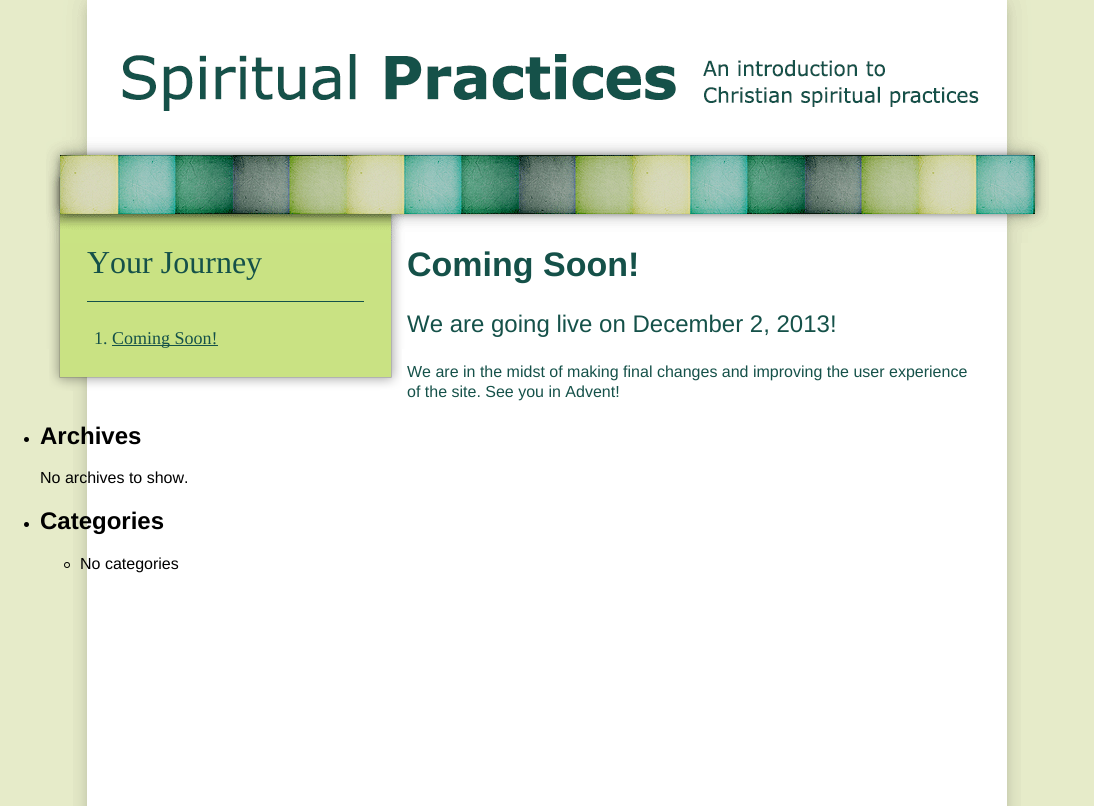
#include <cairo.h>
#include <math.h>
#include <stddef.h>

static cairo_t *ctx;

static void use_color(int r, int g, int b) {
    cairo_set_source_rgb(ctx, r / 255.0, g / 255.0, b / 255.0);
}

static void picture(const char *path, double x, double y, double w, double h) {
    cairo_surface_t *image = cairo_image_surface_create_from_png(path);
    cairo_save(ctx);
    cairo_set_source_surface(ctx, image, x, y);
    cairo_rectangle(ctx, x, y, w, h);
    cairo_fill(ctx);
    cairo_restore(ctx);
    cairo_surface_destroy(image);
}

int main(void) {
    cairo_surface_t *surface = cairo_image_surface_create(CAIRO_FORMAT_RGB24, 1094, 806);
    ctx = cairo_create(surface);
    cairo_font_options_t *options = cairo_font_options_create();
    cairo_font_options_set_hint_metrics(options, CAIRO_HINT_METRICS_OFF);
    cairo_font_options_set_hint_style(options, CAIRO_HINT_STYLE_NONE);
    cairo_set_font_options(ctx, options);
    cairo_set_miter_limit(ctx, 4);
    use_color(230, 235, 201);
    cairo_paint(ctx);
    picture("img1.png", 73, 243, 948, 563);
    picture("img2.png", 46, 0, 1003, 243);
    picture("img3.png", 49, 349, 353, 42);
    picture("img4.png", 44, 243, 363, 106);
    use_color(21, 81, 73);
    cairo_rectangle(ctx, 87, 301, 277, 1);
    cairo_fill(ctx);
    cairo_select_font_face(ctx, "Liberation Serif", CAIRO_FONT_SLANT_NORMAL, CAIRO_FONT_WEIGHT_NORMAL);
    cairo_set_font_size(ctx, 32);
    cairo_move_to(ctx, 87, 273);
    cairo_show_text(ctx, "Your Journey");
    cairo_set_font_size(ctx, 18);
    cairo_move_to(ctx, 94, 344);
    cairo_show_text(ctx, "1.");
    cairo_rectangle(ctx, 112, 345, 106, 1);
    cairo_fill(ctx);
    cairo_move_to(ctx, 112, 344);
    cairo_show_text(ctx, "Coming Soon!");
    cairo_select_font_face(ctx, "Liberation Sans", CAIRO_FONT_SLANT_NORMAL, CAIRO_FONT_WEIGHT_BOLD);
    cairo_set_font_size(ctx, 34);
    cairo_move_to(ctx, 407, 276);
    cairo_show_text(ctx, "Coming Soon!");
    cairo_select_font_face(ctx, "Liberation Sans", CAIRO_FONT_SLANT_NORMAL, CAIRO_FONT_WEIGHT_NORMAL);
    cairo_set_font_size(ctx, 24);
    cairo_move_to(ctx, 407, 332);
    cairo_show_text(ctx, "We are going live on December 2, 2013!");
    cairo_set_font_size(ctx, 16);
    cairo_move_to(ctx, 407, 377);
    cairo_show_text(ctx, "We are in the midst of making final changes and improving the user experience");
    cairo_move_to(ctx, 407, 397);
    cairo_show_text(ctx, "of the site. See you in Advent!");
    use_color(0, 0, 0);
    cairo_new_path(ctx);
    cairo_arc(ctx, 26.5, 439.5, 2.5, 0, 2 * M_PI);
    cairo_fill(ctx);
    cairo_select_font_face(ctx, "Liberation Sans", CAIRO_FONT_SLANT_NORMAL, CAIRO_FONT_WEIGHT_BOLD);
    cairo_set_font_size(ctx, 24);
    cairo_move_to(ctx, 40, 444);
    cairo_show_text(ctx, "Archives");
    cairo_select_font_face(ctx, "Liberation Sans", CAIRO_FONT_SLANT_NORMAL, CAIRO_FONT_WEIGHT_NORMAL);
    cairo_set_font_size(ctx, 16);
    cairo_move_to(ctx, 40, 483);
    cairo_show_text(ctx, "No archives to show.");
    cairo_new_path(ctx);
    cairo_arc(ctx, 26.5, 524.5, 2.5, 0, 2 * M_PI);
    cairo_fill(ctx);
    cairo_select_font_face(ctx, "Liberation Sans", CAIRO_FONT_SLANT_NORMAL, CAIRO_FONT_WEIGHT_BOLD);
    cairo_set_font_size(ctx, 24);
    cairo_move_to(ctx, 40, 529);
    cairo_show_text(ctx, "Categories");
    cairo_new_path(ctx);
    cairo_arc(ctx, 67, 565, 2.5, 0, 2 * M_PI);
    cairo_set_line_width(ctx, 1);
    cairo_stroke(ctx);
    cairo_select_font_face(ctx, "Liberation Sans", CAIRO_FONT_SLANT_NORMAL, CAIRO_FONT_WEIGHT_NORMAL);
    cairo_set_font_size(ctx, 16);
    cairo_move_to(ctx, 80, 569);
    cairo_show_text(ctx, "No categories");
    cairo_surface_write_to_png(surface, "result.png");
    cairo_font_options_destroy(options);
    cairo_destroy(ctx);
    cairo_surface_destroy(surface);
    return 0;
}
